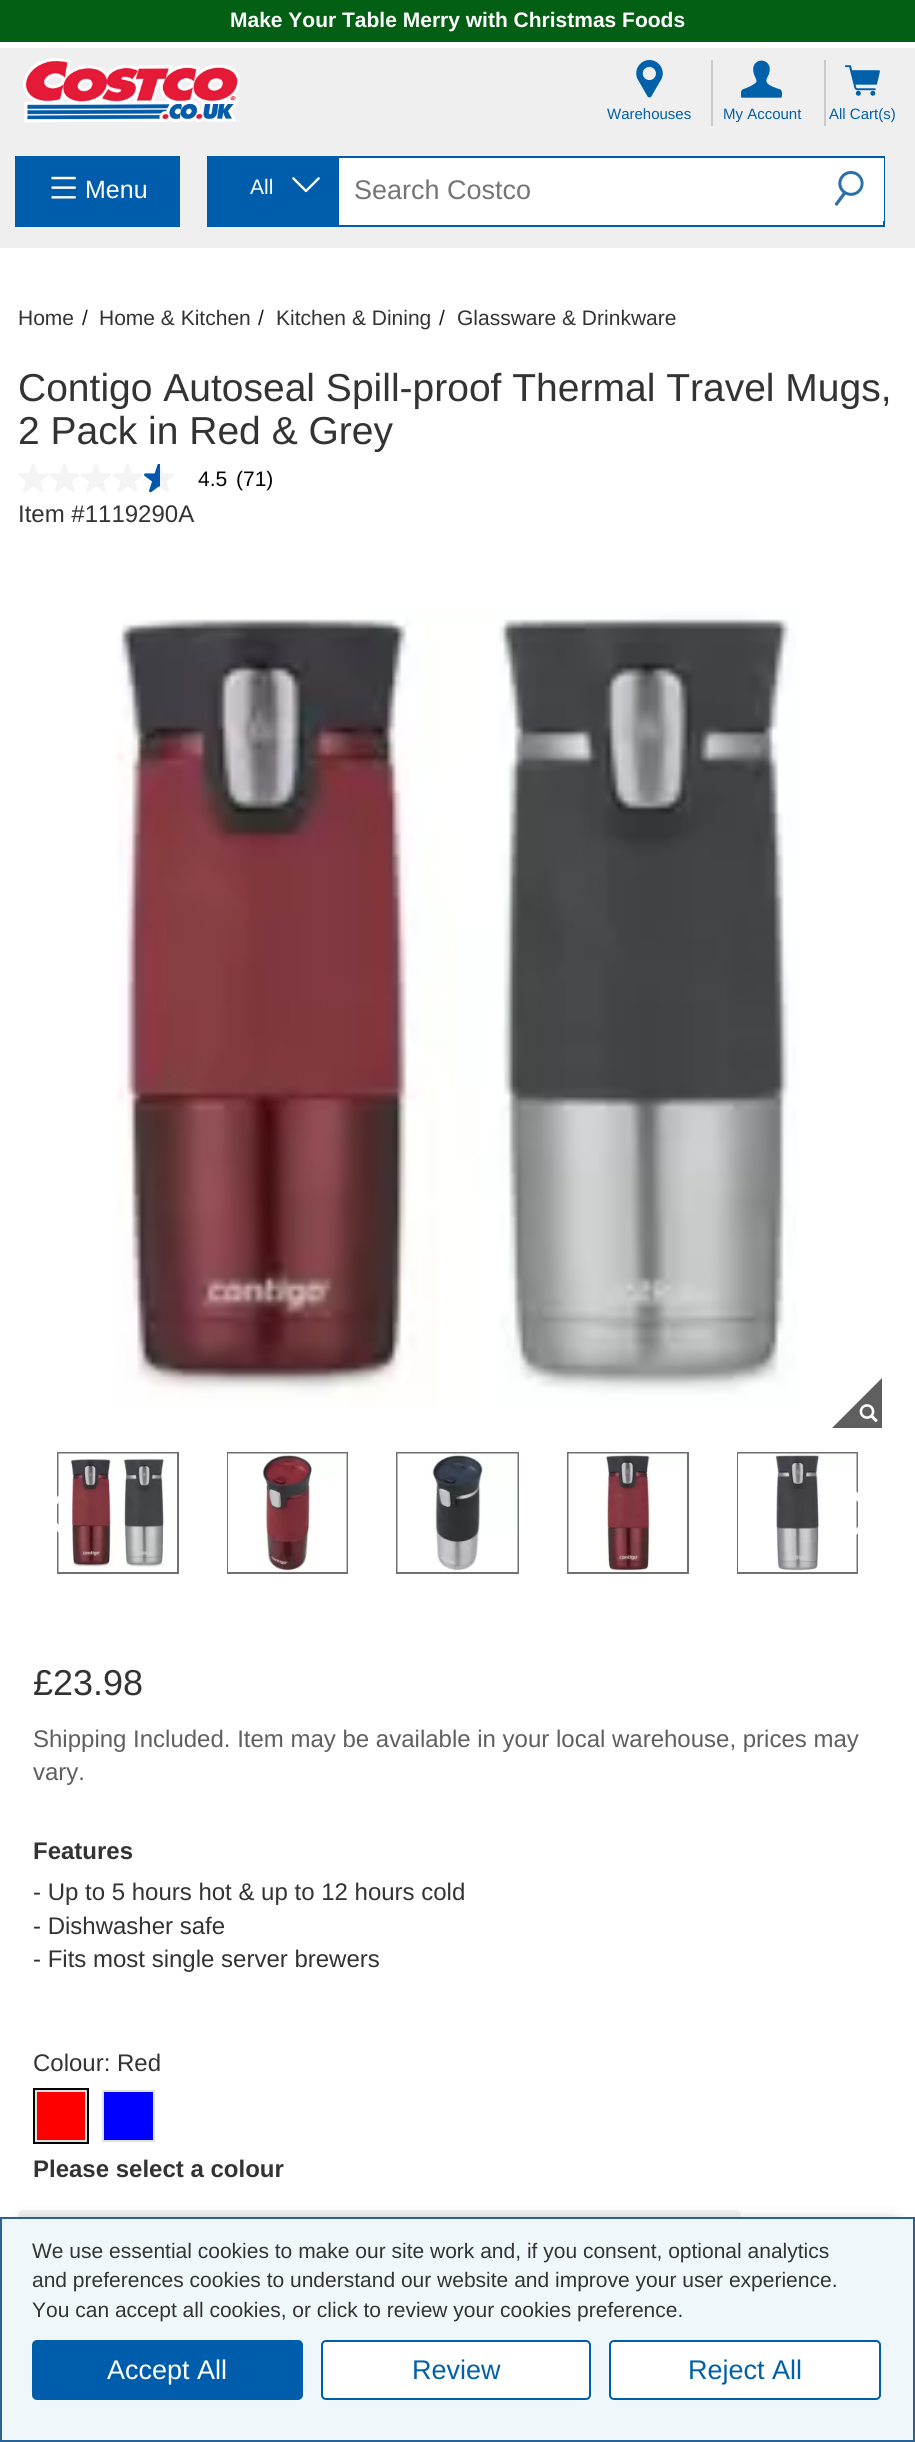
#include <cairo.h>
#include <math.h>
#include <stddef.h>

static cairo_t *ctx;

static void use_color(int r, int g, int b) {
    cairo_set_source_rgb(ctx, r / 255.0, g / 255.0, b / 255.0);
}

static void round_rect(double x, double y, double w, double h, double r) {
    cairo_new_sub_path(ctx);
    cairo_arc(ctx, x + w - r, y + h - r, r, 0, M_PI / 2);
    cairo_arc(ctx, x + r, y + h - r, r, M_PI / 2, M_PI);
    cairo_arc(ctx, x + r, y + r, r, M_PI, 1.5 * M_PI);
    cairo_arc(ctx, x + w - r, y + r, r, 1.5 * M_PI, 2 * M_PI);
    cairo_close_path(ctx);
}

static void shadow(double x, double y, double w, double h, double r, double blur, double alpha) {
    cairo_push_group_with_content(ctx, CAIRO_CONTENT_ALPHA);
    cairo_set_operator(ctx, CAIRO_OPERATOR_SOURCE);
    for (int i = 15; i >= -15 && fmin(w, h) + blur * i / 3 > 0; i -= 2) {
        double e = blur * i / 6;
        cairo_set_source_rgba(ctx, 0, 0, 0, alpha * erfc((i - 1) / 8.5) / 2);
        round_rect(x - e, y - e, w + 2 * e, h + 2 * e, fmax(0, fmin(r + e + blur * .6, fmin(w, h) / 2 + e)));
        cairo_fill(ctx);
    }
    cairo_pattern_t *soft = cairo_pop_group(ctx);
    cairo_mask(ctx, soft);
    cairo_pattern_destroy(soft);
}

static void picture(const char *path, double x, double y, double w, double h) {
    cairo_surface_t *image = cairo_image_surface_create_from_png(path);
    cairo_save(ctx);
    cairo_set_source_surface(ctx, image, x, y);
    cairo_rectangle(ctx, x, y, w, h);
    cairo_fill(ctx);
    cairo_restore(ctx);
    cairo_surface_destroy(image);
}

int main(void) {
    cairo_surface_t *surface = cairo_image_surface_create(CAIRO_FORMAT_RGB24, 915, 2442);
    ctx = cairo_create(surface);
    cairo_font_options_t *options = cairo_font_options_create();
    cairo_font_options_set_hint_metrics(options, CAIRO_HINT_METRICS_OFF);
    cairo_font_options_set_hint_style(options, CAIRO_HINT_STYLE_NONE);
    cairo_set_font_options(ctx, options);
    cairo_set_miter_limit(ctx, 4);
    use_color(255, 255, 255);
    cairo_paint(ctx);
    use_color(2, 95, 19);
    cairo_rectangle(ctx, 0, 0, 915, 42);
    cairo_fill(ctx);
    cairo_select_font_face(ctx, "Liberation Sans", CAIRO_FONT_SLANT_NORMAL, CAIRO_FONT_WEIGHT_BOLD);
    cairo_set_font_size(ctx, 21);
    use_color(255, 255, 255);
    cairo_move_to(ctx, 230, 27);
    cairo_show_text(ctx, "Make Your Table Merry with Christmas Foods");
    use_color(239, 239, 239);
    cairo_rectangle(ctx, 0, 48, 915, 200);
    cairo_fill(ctx);
    picture("img1.png", 23, 58, 217, 65);
    use_color(202, 202, 202);
    cairo_rectangle(ctx, 711, 60, 2, 66);
    cairo_fill(ctx);
    picture("img2.png", 636, 60, 27, 38);
    cairo_select_font_face(ctx, "Liberation Sans", CAIRO_FONT_SLANT_NORMAL, CAIRO_FONT_WEIGHT_NORMAL);
    cairo_set_font_size(ctx, 15);
    use_color(0, 96, 169);
    cairo_move_to(ctx, 607, 119);
    cairo_show_text(ctx, "Warehouses");
    use_color(202, 202, 202);
    cairo_rectangle(ctx, 824, 60, 2, 66);
    cairo_fill(ctx);
    picture("img3.png", 741, 60, 41, 38);
    use_color(0, 96, 169);
    cairo_move_to(ctx, 723, 119);
    cairo_show_text(ctx, "My Account");
    picture("img4.png", 845, 65, 35, 31);
    cairo_move_to(ctx, 829, 119);
    cairo_show_text(ctx, "All Cart(s)");
    use_color(0, 93, 171);
    cairo_rectangle(ctx, 15, 156, 165, 71);
    cairo_fill(ctx);
    picture("img5.png", 51, 176, 25, 23);
    cairo_set_font_size(ctx, 25);
    use_color(255, 255, 255);
    cairo_move_to(ctx, 85, 198);
    cairo_show_text(ctx, "Menu");
    cairo_rectangle(ctx, 339, 158, 544, 67);
    cairo_fill(ctx);
    cairo_rectangle(ctx, 208, 157, 676, 69);
    use_color(0, 93, 171);
    cairo_stroke(ctx);
    cairo_rectangle(ctx, 209, 158, 130, 67);
    cairo_fill(ctx);
    cairo_set_font_size(ctx, 21);
    use_color(255, 255, 255);
    cairo_move_to(ctx, 250, 194);
    cairo_show_text(ctx, "All");
    picture("img6.png", 292, 177, 28, 16);
    cairo_set_font_size(ctx, 27);
    use_color(117, 117, 117);
    cairo_move_to(ctx, 354, 199);
    cairo_show_text(ctx, "Search Costco");
    use_color(255, 255, 255);
    cairo_rectangle(ctx, 883, 158, 1, 63);
    cairo_fill(ctx);
    picture("img7.png", 834, 171, 30, 35);
    use_color(241, 241, 241);
    round_rect(19, 2211, 721, 58, 4);
    cairo_fill_preserve(ctx);
    cairo_stroke(ctx);
    use_color(156, 156, 156);
    shadow(21, 2223, 873, 183, 0, 7.5, 1);
    use_color(239, 247, 251);
    cairo_rectangle(ctx, 1, 2218, 913, 223);
    cairo_fill_preserve(ctx);
    use_color(42, 98, 147);
    cairo_stroke(ctx);
    cairo_set_font_size(ctx, 21);
    use_color(51, 51, 51);
    cairo_move_to(ctx, 32, 2258);
    cairo_show_text(ctx, "We use essential cookies to make our site work and, if you consent, optional analytics");
    cairo_move_to(ctx, 32, 2287);
    cairo_show_text(ctx, "and preferences cookies to understand our website and improve your user experience.");
    cairo_move_to(ctx, 32, 2317);
    cairo_show_text(ctx, "You can accept all cookies, or click to review your cookies preference.");
    use_color(0, 93, 171);
    round_rect(33, 2341, 269, 58, 4);
    cairo_fill_preserve(ctx);
    cairo_stroke(ctx);
    cairo_set_font_size(ctx, 27);
    use_color(255, 255, 255);
    cairo_move_to(ctx, 107, 2379);
    cairo_show_text(ctx, "Accept All");
    round_rect(322, 2341, 268, 58, 4);
    cairo_fill_preserve(ctx);
    use_color(0, 93, 171);
    cairo_stroke(ctx);
    use_color(0, 96, 169);
    cairo_move_to(ctx, 412, 2379);
    cairo_show_text(ctx, "Review");
    use_color(255, 255, 255);
    round_rect(610, 2341, 270, 58, 4);
    cairo_fill_preserve(ctx);
    use_color(0, 93, 171);
    cairo_stroke(ctx);
    use_color(0, 96, 169);
    cairo_move_to(ctx, 688, 2379);
    cairo_show_text(ctx, "Reject All");
    cairo_set_font_size(ctx, 21);
    use_color(51, 51, 51);
    cairo_move_to(ctx, 18, 325);
    cairo_show_text(ctx, "Home");
    use_color(25, 33, 43);
    cairo_move_to(ctx, 82, 325);
    cairo_show_text(ctx, "/");
    use_color(51, 51, 51);
    cairo_move_to(ctx, 99, 325);
    cairo_show_text(ctx, "Home & Kitchen");
    use_color(25, 33, 43);
    cairo_move_to(ctx, 258, 325);
    cairo_show_text(ctx, "/");
    use_color(51, 51, 51);
    cairo_move_to(ctx, 276, 325);
    cairo_show_text(ctx, "Kitchen & Dining");
    use_color(25, 33, 43);
    cairo_move_to(ctx, 439, 325);
    cairo_show_text(ctx, "/");
    use_color(51, 51, 51);
    cairo_move_to(ctx, 457, 325);
    cairo_show_text(ctx, "Glassware & Drinkware");
    cairo_set_font_size(ctx, 39);
    cairo_move_to(ctx, 18, 401);
    cairo_show_text(ctx, "Contigo Autoseal Spill-proof Thermal Travel Mugs,");
    cairo_move_to(ctx, 18, 444);
    cairo_show_text(ctx, "2 Pack in Red & Grey");
    picture("img8.png", 18, 464, 30, 28);
    picture("img9.png", 49, 464, 30, 28);
    picture("img8.png", 81, 464, 30, 28);
    picture("img9.png", 112, 464, 30, 28);
    picture("img10.png", 144, 464, 30, 29);
    cairo_set_font_size(ctx, 21);
    use_color(0, 0, 0);
    cairo_move_to(ctx, 198, 486);
    cairo_show_text(ctx, "4.5");
    cairo_move_to(ctx, 236, 486);
    cairo_show_text(ctx, "(71)");
    cairo_set_font_size(ctx, 24);
    use_color(51, 51, 51);
    cairo_move_to(ctx, 18, 522);
    cairo_show_text(ctx, "Item #1119290A");
    picture("img11.png", 116, 611, 681, 795);
    use_color(95, 95, 95);
    cairo_new_path(ctx);
    cairo_move_to(ctx, 882, 1428);
    cairo_line_to(ctx, 832, 1428);
    cairo_line_to(ctx, 882, 1378);
    cairo_close_path(ctx);
    cairo_fill(ctx);
    picture("img12.png", 859, 1404, 19, 19);
    cairo_rectangle(ctx, 58, 1453, 120, 120);
    use_color(112, 112, 112);
    cairo_stroke(ctx);
    picture("img13.png", 58, 1453, 119, 119);
    cairo_rectangle(ctx, 228, 1453, 119, 120);
    cairo_stroke(ctx);
    picture("img14.png", 228, 1453, 119, 119);
    cairo_rectangle(ctx, 397, 1453, 121, 120);
    cairo_stroke(ctx);
    picture("img15.png", 397, 1453, 121, 119);
    cairo_rectangle(ctx, 568, 1453, 120, 120);
    cairo_stroke(ctx);
    picture("img16.png", 568, 1453, 119, 119);
    cairo_rectangle(ctx, 738, 1453, 119, 120);
    cairo_stroke(ctx);
    picture("img17.png", 738, 1453, 119, 119);
    use_color(255, 255, 255);
    cairo_new_path(ctx);
    cairo_move_to(ctx, 67, 1487);
    cairo_line_to(ctx, 45, 1509);
    cairo_curve_to(ctx, 39, 1515, 39, 1513, 45, 1519);
    cairo_line_to(ctx, 62, 1536);
    cairo_curve_to(ctx, 67, 1541, 66, 1542, 70, 1538);
    cairo_line_to(ctx, 71, 1537);
    cairo_line_to(ctx, 48, 1514);
    cairo_line_to(ctx, 66, 1495);
    cairo_curve_to(ctx, 69, 1492, 73, 1489, 68, 1487);
    cairo_close_path(ctx);
    cairo_fill(ctx);
    cairo_new_path(ctx);
    cairo_move_to(ctx, 851, 1540);
    cairo_line_to(ctx, 873, 1519);
    cairo_curve_to(ctx, 879, 1513, 879, 1515, 873, 1509);
    cairo_line_to(ctx, 856, 1491);
    cairo_curve_to(ctx, 851, 1486, 852, 1485, 848, 1489);
    cairo_line_to(ctx, 847, 1491);
    cairo_line_to(ctx, 870, 1514);
    cairo_line_to(ctx, 852, 1533);
    cairo_curve_to(ctx, 850, 1534, 846, 1537, 848, 1538);
    cairo_curve_to(ctx, 848, 1539, 850, 1542, 851, 1540);
    cairo_close_path(ctx);
    cairo_fill(ctx);
    cairo_set_font_size(ctx, 36);
    use_color(51, 51, 51);
    cairo_move_to(ctx, 33, 1695);
    cairo_show_text(ctx, "£23.98");
    cairo_set_font_size(ctx, 24);
    use_color(95, 95, 95);
    cairo_move_to(ctx, 33, 1747);
    cairo_show_text(ctx, "Shipping Included. Item may be available in your local warehouse, prices may");
    cairo_move_to(ctx, 33, 1780);
    cairo_show_text(ctx, "vary.");
    cairo_select_font_face(ctx, "Liberation Sans", CAIRO_FONT_SLANT_NORMAL, CAIRO_FONT_WEIGHT_BOLD);
    use_color(51, 51, 51);
    cairo_move_to(ctx, 33, 1859);
    cairo_show_text(ctx, "Features");
    cairo_select_font_face(ctx, "Liberation Sans", CAIRO_FONT_SLANT_NORMAL, CAIRO_FONT_WEIGHT_NORMAL);
    cairo_move_to(ctx, 33, 1900);
    cairo_show_text(ctx, "- Up to 5 hours hot & up to 12 hours cold");
    cairo_move_to(ctx, 33, 1934);
    cairo_show_text(ctx, "- Dishwasher safe");
    cairo_move_to(ctx, 33, 1967);
    cairo_show_text(ctx, "- Fits most single server brewers");
    cairo_move_to(ctx, 33, 2071);
    cairo_show_text(ctx, "Colour: Red");
    cairo_rectangle(ctx, 34, 2089, 54, 54);
    use_color(0, 0, 0);
    cairo_stroke(ctx);
    use_color(255, 0, 0);
    cairo_rectangle(ctx, 36, 2091, 50, 50);
    cairo_fill_preserve(ctx);
    use_color(225, 225, 225);
    cairo_stroke(ctx);
    use_color(0, 0, 255);
    cairo_rectangle(ctx, 103, 2091, 51, 50);
    cairo_fill_preserve(ctx);
    use_color(225, 225, 225);
    cairo_stroke(ctx);
    cairo_select_font_face(ctx, "Liberation Sans", CAIRO_FONT_SLANT_NORMAL, CAIRO_FONT_WEIGHT_BOLD);
    use_color(51, 51, 51);
    cairo_move_to(ctx, 33, 2177);
    cairo_show_text(ctx, "Please select a colour");
    cairo_surface_write_to_png(surface, "result.png");
    cairo_font_options_destroy(options);
    cairo_destroy(ctx);
    cairo_surface_destroy(surface);
    return 0;
}
